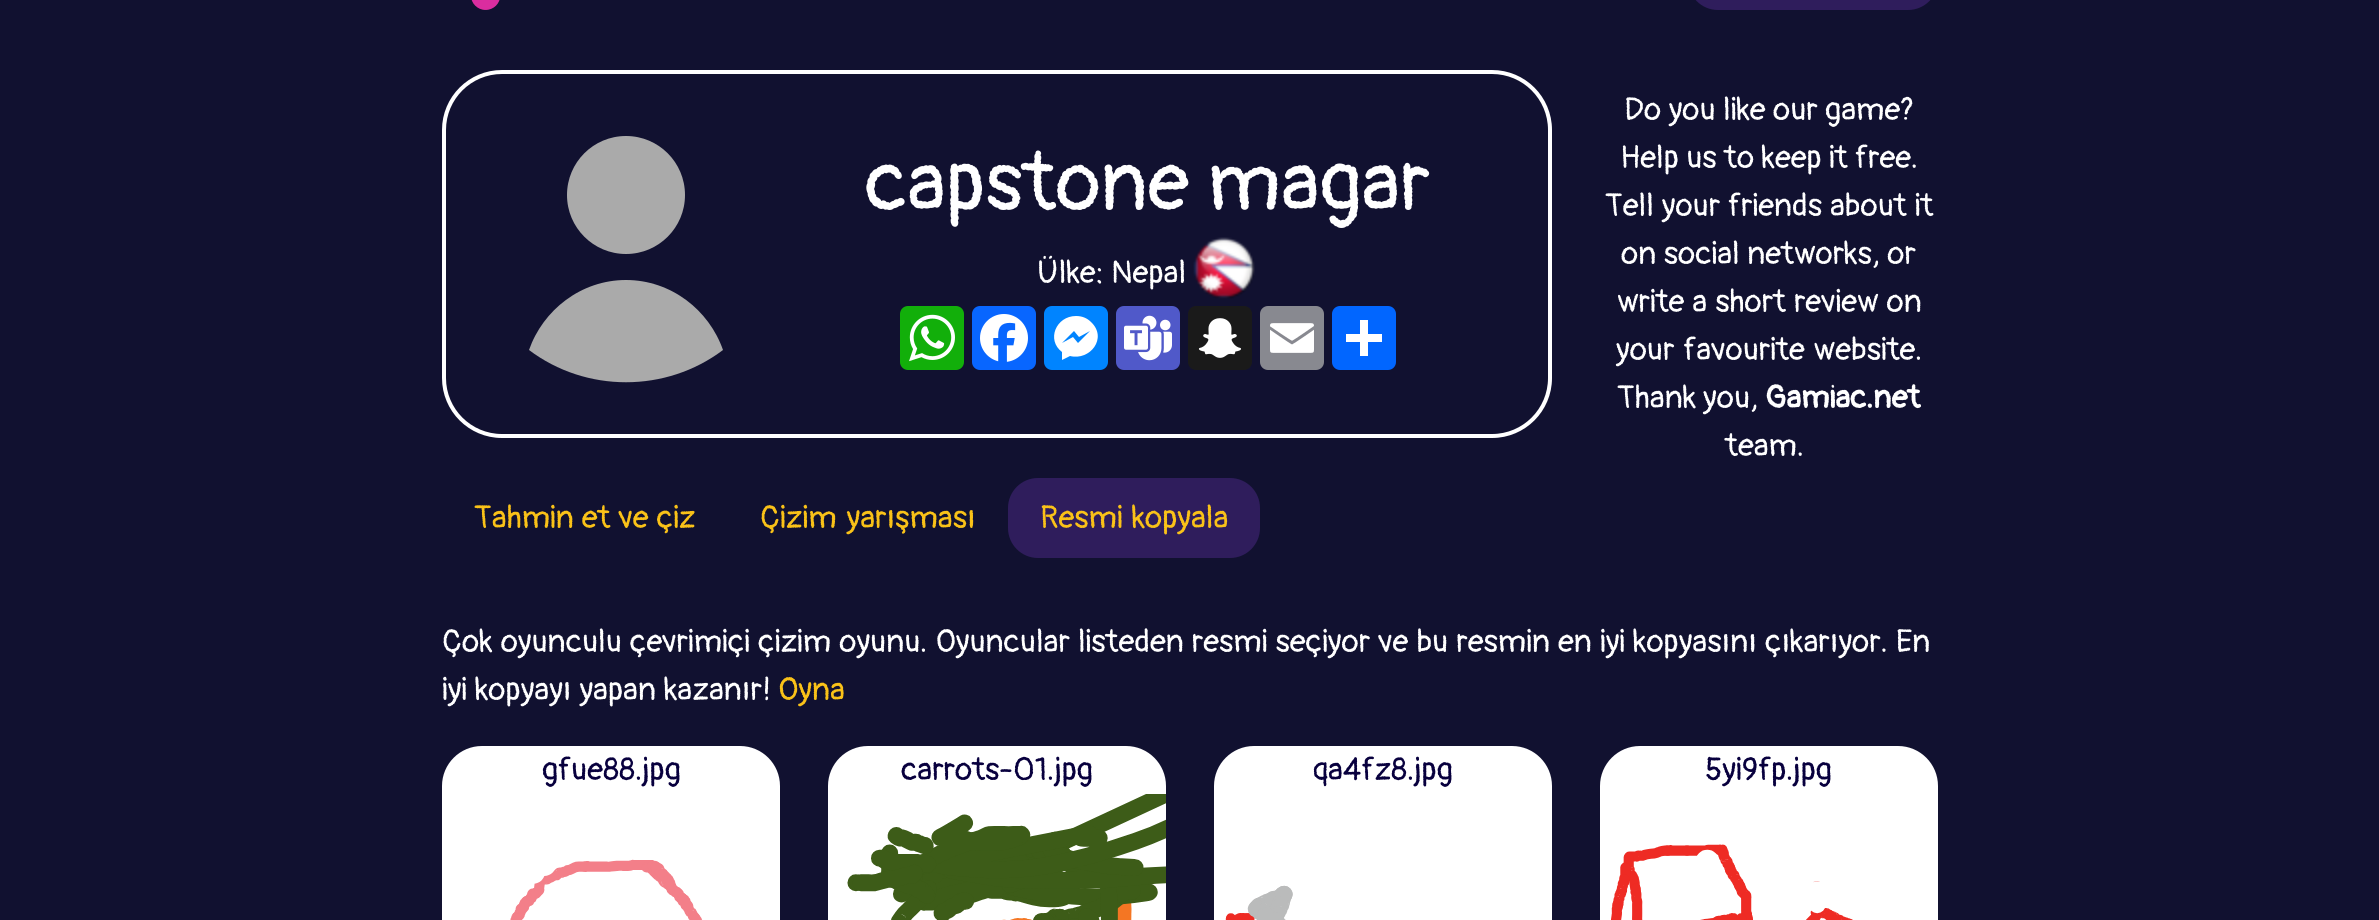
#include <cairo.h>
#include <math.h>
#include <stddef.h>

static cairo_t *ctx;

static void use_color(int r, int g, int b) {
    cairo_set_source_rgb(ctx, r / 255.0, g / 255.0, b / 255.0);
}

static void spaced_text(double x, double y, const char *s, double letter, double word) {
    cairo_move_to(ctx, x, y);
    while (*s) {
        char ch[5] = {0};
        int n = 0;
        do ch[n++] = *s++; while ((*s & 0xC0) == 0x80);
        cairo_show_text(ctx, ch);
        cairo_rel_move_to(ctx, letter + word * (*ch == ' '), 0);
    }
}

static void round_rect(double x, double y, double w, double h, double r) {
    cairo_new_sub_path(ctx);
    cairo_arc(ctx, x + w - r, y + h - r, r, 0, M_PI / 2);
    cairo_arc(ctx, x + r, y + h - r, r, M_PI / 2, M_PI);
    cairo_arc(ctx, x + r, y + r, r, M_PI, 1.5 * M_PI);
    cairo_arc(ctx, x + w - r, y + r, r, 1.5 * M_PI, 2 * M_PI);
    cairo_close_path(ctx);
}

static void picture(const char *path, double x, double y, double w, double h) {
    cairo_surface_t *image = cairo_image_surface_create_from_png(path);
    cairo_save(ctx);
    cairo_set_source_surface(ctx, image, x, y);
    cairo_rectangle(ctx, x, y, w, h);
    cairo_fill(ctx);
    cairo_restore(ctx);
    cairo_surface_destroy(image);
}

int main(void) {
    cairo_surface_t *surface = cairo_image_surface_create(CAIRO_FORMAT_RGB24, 2379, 920);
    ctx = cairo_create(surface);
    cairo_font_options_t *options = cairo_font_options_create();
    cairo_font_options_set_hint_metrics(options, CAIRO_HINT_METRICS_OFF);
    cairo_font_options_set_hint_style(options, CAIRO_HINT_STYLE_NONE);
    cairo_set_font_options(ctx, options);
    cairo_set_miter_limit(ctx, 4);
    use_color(17, 17, 48);
    cairo_paint(ctx);
    picture("img1.png", 471, 0, 29, 10);
    use_color(47, 29, 92);
    round_rect(1688, -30, 250, 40, 30);
    cairo_fill(ctx);
    round_rect(444, 72, 1106, 364, 58);
    use_color(255, 255, 255);
    cairo_set_line_width(ctx, 4);
    cairo_stroke(ctx);
    use_color(170, 170, 170);
    cairo_arc(ctx, 626, 195, 59, 0, 2 * M_PI);
    cairo_fill(ctx);
    cairo_new_path(ctx);
    cairo_move_to(ctx, 626, 280);
    cairo_curve_to(ctx, 671, 280, 709, 310, 723, 350);
    cairo_curve_to(ctx, 666, 393, 586, 393, 529, 350);
    cairo_curve_to(ctx, 543, 310, 581, 280, 626, 280);
    cairo_close_path(ctx);
    cairo_fill(ctx);
    cairo_select_font_face(ctx, "Pangolin", CAIRO_FONT_SLANT_NORMAL, CAIRO_FONT_WEIGHT_NORMAL);
    cairo_set_font_size(ctx, 83.25);
    use_color(255, 255, 255);
    cairo_move_to(ctx, 865, 210);
    cairo_show_text(ctx, "capstone magar");
    cairo_set_font_size(ctx, 32);
    cairo_move_to(ctx, 1037, 283);
    cairo_show_text(ctx, "Ülke: Nepal");
    picture("img2.png", 1193, 237, 62, 62);
    use_color(18, 175, 10);
    round_rect(900, 306, 64, 64, 8);
    cairo_fill(ctx);
    picture("img3.png", 909, 314, 46, 48);
    use_color(8, 102, 255);
    round_rect(972, 306, 64, 64, 8);
    cairo_fill(ctx);
    picture("img4.png", 980, 314, 48, 48);
    use_color(0, 132, 255);
    round_rect(1044, 306, 64, 64, 8);
    cairo_fill(ctx);
    use_color(255, 255, 255);
    cairo_new_path(ctx);
    cairo_move_to(ctx, 1076, 316);
    cairo_curve_to(ctx, 1056, 316, 1046, 340, 1062, 352);
    cairo_line_to(ctx, 1062, 360);
    cairo_line_to(ctx, 1070, 356);
    cairo_curve_to(ctx, 1090, 361, 1108, 338, 1091, 322);
    cairo_curve_to(ctx, 1087, 318, 1082, 316, 1076, 316);
    cairo_move_to(ctx, 1078, 343);
    cairo_line_to(ctx, 1073, 337);
    cairo_line_to(ctx, 1062, 343);
    cairo_line_to(ctx, 1074, 331);
    cairo_line_to(ctx, 1079, 337);
    cairo_line_to(ctx, 1090, 331);
    cairo_close_path(ctx);
    cairo_fill(ctx);
    use_color(80, 89, 201);
    round_rect(1116, 306, 64, 64, 8);
    cairo_fill(ctx);
    picture("img5.png", 1124, 315, 48, 46);
    use_color(26, 26, 26);
    round_rect(1188, 306, 64, 64, 8);
    cairo_fill(ctx);
    picture("img6.png", 1198, 318, 43, 40);
    use_color(136, 137, 144);
    round_rect(1260, 306, 64, 64, 8);
    cairo_fill(ctx);
    picture("img7.png", 1270, 323, 44, 30);
    use_color(1, 102, 255);
    round_rect(1332, 306, 64, 64, 8);
    cairo_fill(ctx);
    use_color(255, 255, 255);
    cairo_rectangle(ctx, 1360, 320, 8, 36);
    cairo_fill(ctx);
    cairo_rectangle(ctx, 1346, 334, 36, 8);
    cairo_fill(ctx);
    spaced_text(1624, 120, "Do you like our game?", 0, 0.5);
    spaced_text(1620, 168, "Help us to keep it free.", 0, 0.5);
    spaced_text(1605, 216, "Tell your friends about it", 0, 1);
    spaced_text(1621, 264, "on social networks, or", 0, 0.5);
    spaced_text(1617, 312, "write a short review on", 0, 1);
    spaced_text(1616, 360, "your favourite website.", 0, 2);
    cairo_move_to(ctx, 1617, 408);
    cairo_show_text(ctx, "Thank you,");
    cairo_select_font_face(ctx, "Pangolin", CAIRO_FONT_SLANT_NORMAL, CAIRO_FONT_WEIGHT_BOLD);
    cairo_move_to(ctx, 1765, 408);
    cairo_show_text(ctx, "Gamiac.net");
    cairo_select_font_face(ctx, "Pangolin", CAIRO_FONT_SLANT_NORMAL, CAIRO_FONT_WEIGHT_NORMAL);
    cairo_move_to(ctx, 1725, 456);
    cairo_show_text(ctx, "team.");
    use_color(250, 194, 24);
    spaced_text(474, 528, "Tahmin et ve çiz", 0, 1);
    spaced_text(760, 528, "Çizim yarışması", 0, 3);
    use_color(47, 29, 92);
    round_rect(1008, 478, 252, 80, 30);
    cairo_fill(ctx);
    use_color(250, 194, 24);
    spaced_text(1040, 528, "Resmi kopyala", 0, 2);
    use_color(255, 255, 255);
    spaced_text(442, 652, "Çok oyunculu çevrimiçi çizim oyunu. Oyuncular listeden resmi seçiyor ve bu resmin en iyi kopyasını çıkarıyor. En", 0, 1.1);
    spaced_text(442, 700, "iyi kopyayı yapan kazanır!", 0, 1);
    use_color(250, 194, 24);
    cairo_move_to(ctx, 778, 700);
    cairo_show_text(ctx, "Oyna");
    use_color(255, 255, 255);
    round_rect(442, 746, 338, 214, 40);
    cairo_fill(ctx);
    use_color(8, 0, 62);
    cairo_move_to(ctx, 542, 780);
    cairo_show_text(ctx, "gfue88.jpg");
    picture("img8.png", 510, 859, 193, 61);
    use_color(255, 255, 255);
    round_rect(828, 746, 338, 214, 40);
    cairo_fill(ctx);
    use_color(8, 0, 62);
    cairo_move_to(ctx, 901, 780);
    cairo_show_text(ctx, "carrots-01.jpg");
    picture("img9.png", 847, 794, 319, 126);
    use_color(255, 255, 255);
    round_rect(1214, 746, 338, 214, 40);
    cairo_fill(ctx);
    use_color(8, 0, 62);
    cairo_move_to(ctx, 1313, 780);
    cairo_show_text(ctx, "qa4fz8.jpg");
    picture("img10.png", 1225, 885, 68, 35);
    use_color(255, 255, 255);
    round_rect(1600, 746, 338, 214, 40);
    cairo_fill(ctx);
    use_color(8, 0, 62);
    cairo_move_to(ctx, 1705, 780);
    cairo_show_text(ctx, "5yi9fp.jpg");
    picture("img11.png", 1611, 844, 242, 76);
    cairo_surface_write_to_png(surface, "result.png");
    cairo_font_options_destroy(options);
    cairo_destroy(ctx);
    cairo_surface_destroy(surface);
    return 0;
}
